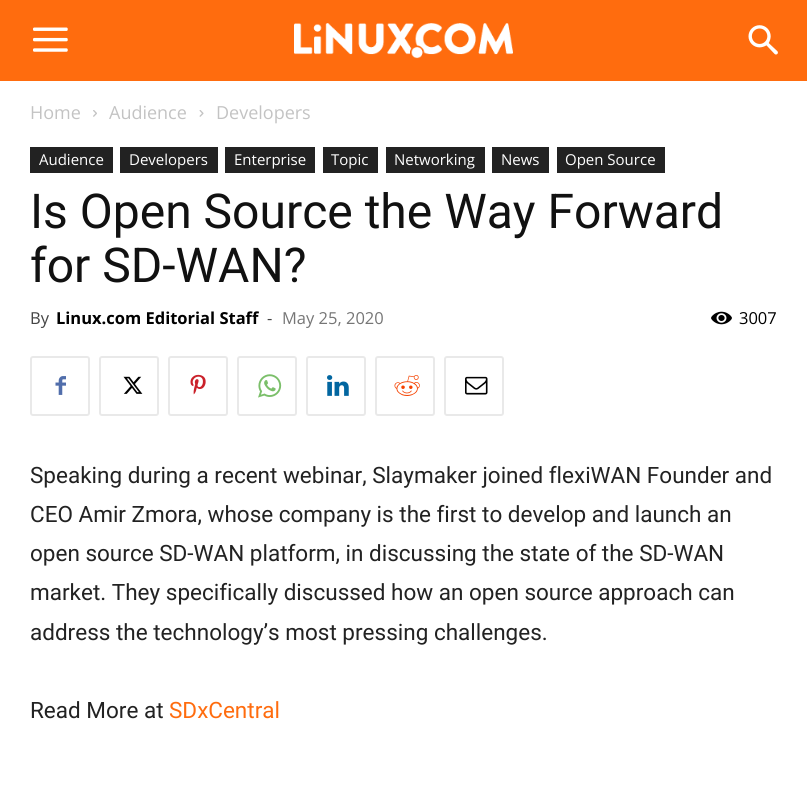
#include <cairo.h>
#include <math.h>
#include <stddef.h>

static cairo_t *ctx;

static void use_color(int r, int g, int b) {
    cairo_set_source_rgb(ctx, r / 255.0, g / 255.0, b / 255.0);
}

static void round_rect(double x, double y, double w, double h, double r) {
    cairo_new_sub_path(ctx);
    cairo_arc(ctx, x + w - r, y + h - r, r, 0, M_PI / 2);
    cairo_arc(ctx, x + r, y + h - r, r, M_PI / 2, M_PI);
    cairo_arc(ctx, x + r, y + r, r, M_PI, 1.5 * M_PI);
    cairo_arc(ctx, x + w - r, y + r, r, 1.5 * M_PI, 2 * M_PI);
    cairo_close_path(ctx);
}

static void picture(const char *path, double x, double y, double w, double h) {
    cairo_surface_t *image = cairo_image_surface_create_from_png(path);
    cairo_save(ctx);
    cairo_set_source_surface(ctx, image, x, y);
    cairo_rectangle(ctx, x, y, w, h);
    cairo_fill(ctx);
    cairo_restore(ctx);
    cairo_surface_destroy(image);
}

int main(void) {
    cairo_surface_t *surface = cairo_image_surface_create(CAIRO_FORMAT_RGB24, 807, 794);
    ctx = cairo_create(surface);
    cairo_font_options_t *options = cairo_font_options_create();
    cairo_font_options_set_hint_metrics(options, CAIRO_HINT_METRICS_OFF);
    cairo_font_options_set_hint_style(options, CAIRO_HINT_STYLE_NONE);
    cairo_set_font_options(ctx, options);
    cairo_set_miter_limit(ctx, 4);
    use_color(255, 255, 255);
    cairo_paint(ctx);
    use_color(255, 108, 14);
    cairo_rectangle(ctx, 0, 0, 807, 81);
    cairo_fill(ctx);
    picture("img1.png", 33, 27, 35, 25);
    picture("img2.png", 294, 23, 219, 36);
    picture("img3.png", 748, 25, 30, 30);
    cairo_select_font_face(ctx, "Open Sans", CAIRO_FONT_SLANT_NORMAL, CAIRO_FONT_WEIGHT_NORMAL);
    cairo_set_font_size(ctx, 18);
    use_color(195, 195, 195);
    cairo_move_to(ctx, 30, 119);
    cairo_show_text(ctx, "Home");
    picture("img4.png", 93, 110, 4, 7);
    cairo_move_to(ctx, 109, 119);
    cairo_show_text(ctx, "Audience");
    picture("img5.png", 199, 110, 5, 7);
    cairo_move_to(ctx, 216, 119);
    cairo_show_text(ctx, "Developers");
    use_color(34, 34, 34);
    cairo_rectangle(ctx, 30, 147, 83, 26);
    cairo_fill(ctx);
    cairo_set_font_size(ctx, 15);
    use_color(255, 255, 255);
    cairo_move_to(ctx, 39, 165);
    cairo_show_text(ctx, "Audience");
    use_color(34, 34, 34);
    cairo_rectangle(ctx, 120, 147, 98, 26);
    cairo_fill(ctx);
    use_color(255, 255, 255);
    cairo_move_to(ctx, 129, 165);
    cairo_show_text(ctx, "Developers");
    use_color(34, 34, 34);
    cairo_rectangle(ctx, 225, 147, 90, 26);
    cairo_fill(ctx);
    use_color(255, 255, 255);
    cairo_move_to(ctx, 234, 165);
    cairo_show_text(ctx, "Enterprise");
    use_color(34, 34, 34);
    cairo_rectangle(ctx, 323, 147, 55, 26);
    cairo_fill(ctx);
    use_color(255, 255, 255);
    cairo_move_to(ctx, 331, 165);
    cairo_show_text(ctx, "Topic");
    use_color(34, 34, 34);
    cairo_rectangle(ctx, 386, 147, 99, 26);
    cairo_fill(ctx);
    use_color(255, 255, 255);
    cairo_move_to(ctx, 394, 165);
    cairo_show_text(ctx, "Networking");
    use_color(34, 34, 34);
    cairo_rectangle(ctx, 492, 147, 57, 26);
    cairo_fill(ctx);
    use_color(255, 255, 255);
    cairo_move_to(ctx, 501, 165);
    cairo_show_text(ctx, "News");
    use_color(34, 34, 34);
    cairo_rectangle(ctx, 557, 147, 108, 26);
    cairo_fill(ctx);
    use_color(255, 255, 255);
    cairo_move_to(ctx, 565, 165);
    cairo_show_text(ctx, "Open Source");
    cairo_select_font_face(ctx, "Roboto", CAIRO_FONT_SLANT_NORMAL, CAIRO_FONT_WEIGHT_NORMAL);
    cairo_set_font_size(ctx, 48);
    use_color(17, 17, 17);
    cairo_move_to(ctx, 30, 228);
    cairo_show_text(ctx, "Is Open Source the Way Forward");
    cairo_move_to(ctx, 30, 282);
    cairo_show_text(ctx, "for SD-WAN?");
    cairo_select_font_face(ctx, "Open Sans", CAIRO_FONT_SLANT_NORMAL, CAIRO_FONT_WEIGHT_NORMAL);
    cairo_set_font_size(ctx, 16.5);
    use_color(68, 68, 68);
    cairo_move_to(ctx, 30, 324);
    cairo_show_text(ctx, "By");
    cairo_select_font_face(ctx, "Open Sans", CAIRO_FONT_SLANT_NORMAL, CAIRO_FONT_WEIGHT_BOLD);
    use_color(0, 0, 0);
    cairo_move_to(ctx, 56, 324);
    cairo_show_text(ctx, "Linux.com Editorial Staff");
    cairo_select_font_face(ctx, "Open Sans", CAIRO_FONT_SLANT_NORMAL, CAIRO_FONT_WEIGHT_NORMAL);
    use_color(68, 68, 68);
    cairo_move_to(ctx, 267, 324);
    cairo_show_text(ctx, "-");
    use_color(118, 118, 118);
    cairo_move_to(ctx, 282, 324);
    cairo_show_text(ctx, "May 25, 2020");
    picture("img6.png", 711, 311, 21, 14);
    use_color(0, 0, 0);
    cairo_move_to(ctx, 739, 324);
    cairo_show_text(ctx, "3007");
    round_rect(31, 357, 58, 58, 2);
    use_color(233, 233, 233);
    cairo_stroke(ctx);
    picture("img7.png", 55, 376, 11, 19);
    round_rect(100, 357, 58, 58, 2);
    cairo_stroke(ctx);
    picture("img8.png", 123, 376, 20, 18);
    round_rect(169, 357, 58, 58, 2);
    cairo_stroke(ctx);
    picture("img9.png", 190, 374, 16, 21);
    round_rect(238, 357, 58, 58, 2);
    cairo_stroke(ctx);
    picture("img10.png", 258, 374, 24, 24);
    round_rect(307, 357, 58, 58, 2);
    cairo_stroke(ctx);
    picture("img11.png", 327, 375, 22, 21);
    round_rect(376, 357, 58, 58, 2);
    cairo_stroke(ctx);
    picture("img12.png", 394, 375, 26, 21);
    round_rect(445, 357, 58, 58, 2);
    cairo_stroke(ctx);
    picture("img13.png", 465, 376, 23, 19);
    cairo_select_font_face(ctx, "Roboto", CAIRO_FONT_SLANT_NORMAL, CAIRO_FONT_WEIGHT_NORMAL);
    cairo_set_font_size(ctx, 22.5);
    use_color(34, 34, 34);
    cairo_move_to(ctx, 30, 483);
    cairo_show_text(ctx, "Speaking during a recent webinar, Slaymaker joined flexiWAN Founder and");
    cairo_move_to(ctx, 30, 522);
    cairo_show_text(ctx, "CEO Amir Zmora, whose company is the first to develop and launch an");
    cairo_move_to(ctx, 30, 561);
    cairo_show_text(ctx, "open source SD-WAN platform, in discussing the state of the SD-WAN");
    cairo_move_to(ctx, 30, 600);
    cairo_show_text(ctx, "market. They specifically discussed how an open source approach can");
    cairo_move_to(ctx, 30, 640);
    cairo_show_text(ctx, "address the technology’s most pressing challenges.");
    cairo_move_to(ctx, 30, 718);
    cairo_show_text(ctx, "Read More at");
    use_color(255, 108, 14);
    cairo_move_to(ctx, 169, 718);
    cairo_show_text(ctx, "SDxCentral");
    cairo_surface_write_to_png(surface, "result.png");
    cairo_font_options_destroy(options);
    cairo_destroy(ctx);
    cairo_surface_destroy(surface);
    return 0;
}
